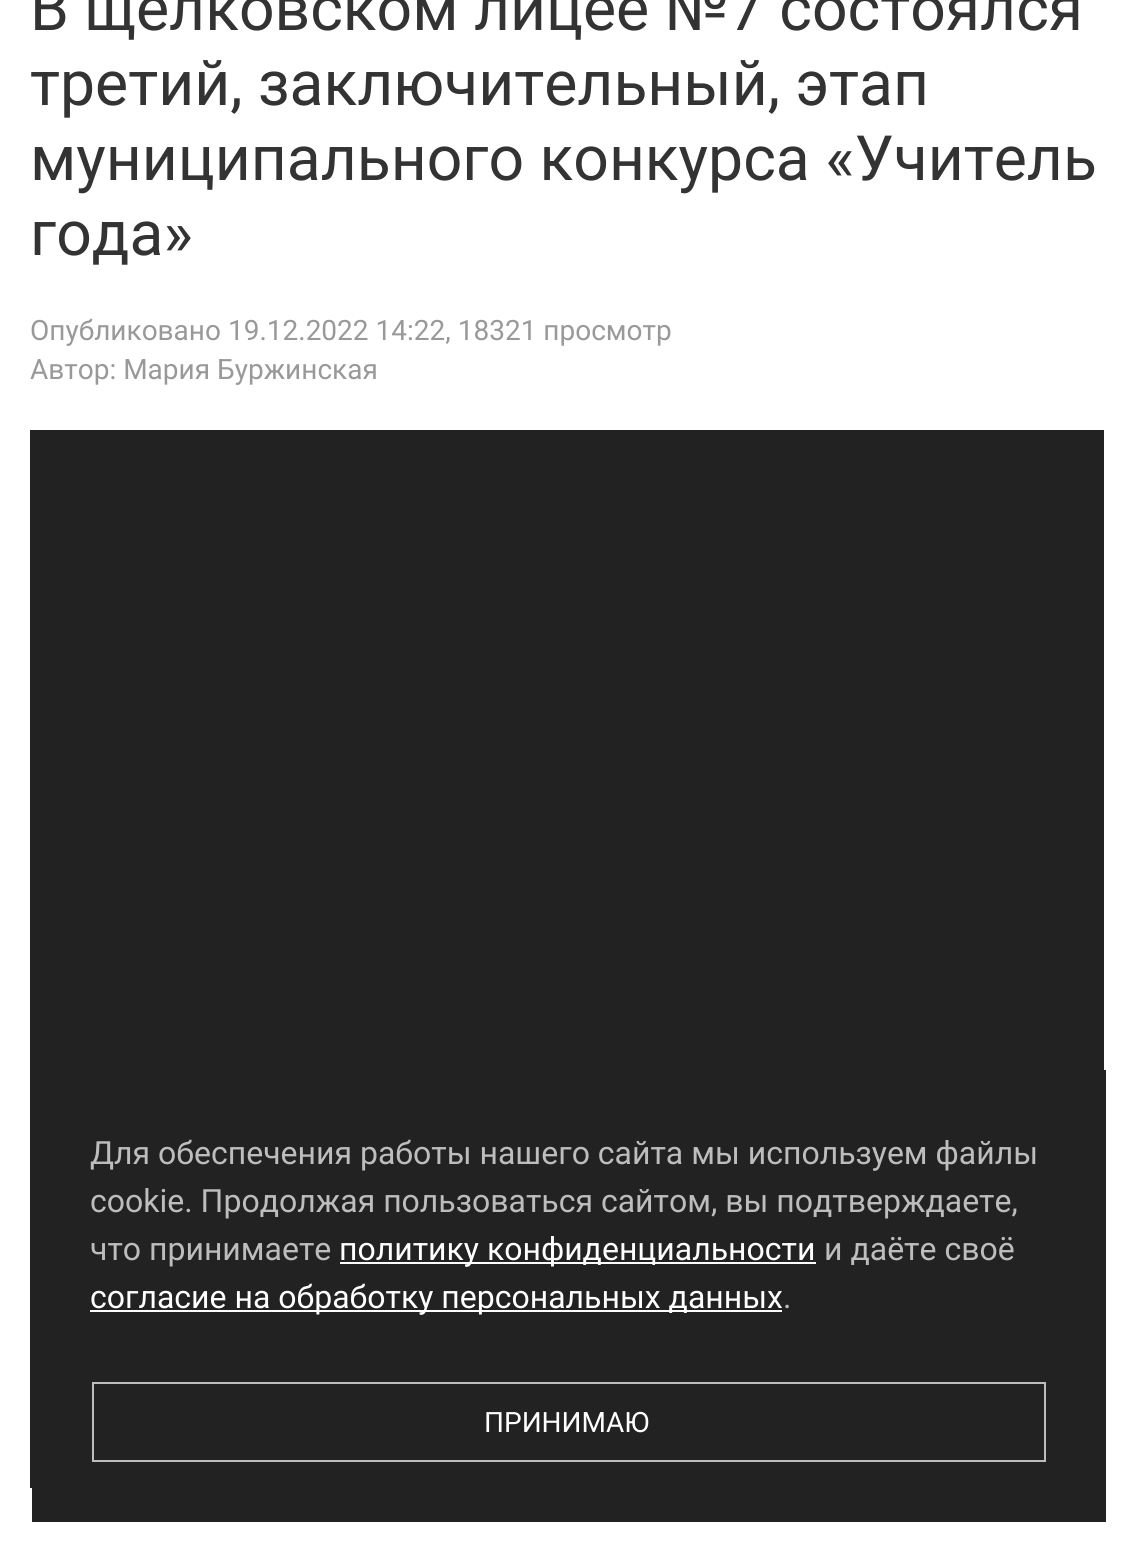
#include <cairo.h>
#include <math.h>
#include <stddef.h>

static cairo_t *ctx;

static void use_color(int r, int g, int b) {
    cairo_set_source_rgb(ctx, r / 255.0, g / 255.0, b / 255.0);
}

int main(void) {
    cairo_surface_t *surface = cairo_image_surface_create(CAIRO_FORMAT_RGB24, 1133, 1551);
    ctx = cairo_create(surface);
    cairo_font_options_t *options = cairo_font_options_create();
    cairo_font_options_set_hint_metrics(options, CAIRO_HINT_METRICS_OFF);
    cairo_font_options_set_hint_style(options, CAIRO_HINT_STYLE_NONE);
    cairo_set_font_options(ctx, options);
    cairo_set_miter_limit(ctx, 4);
    use_color(255, 255, 255);
    cairo_paint(ctx);
    cairo_select_font_face(ctx, "Roboto", CAIRO_FONT_SLANT_NORMAL, CAIRO_FONT_WEIGHT_NORMAL);
    cairo_set_font_size(ctx, 62.4);
    use_color(51, 51, 51);
    cairo_move_to(ctx, 30, 30);
    cairo_show_text(ctx, "В щёлковском лицее №7 состоялся");
    cairo_move_to(ctx, 30, 105);
    cairo_show_text(ctx, "третий, заключительный, этап");
    cairo_move_to(ctx, 30, 180);
    cairo_show_text(ctx, "муниципального конкурса «Учитель");
    cairo_move_to(ctx, 30, 255);
    cairo_show_text(ctx, "года»");
    cairo_set_font_size(ctx, 28);
    use_color(153, 153, 153);
    cairo_move_to(ctx, 30, 340);
    cairo_show_text(ctx, "Опубликовано 19.12.2022 14:22, 18321 просмотр");
    cairo_move_to(ctx, 30, 379);
    cairo_show_text(ctx, "Автор: Мария Буржинская");
    use_color(34, 34, 34);
    cairo_rectangle(ctx, 30, 430, 1074, 1058);
    cairo_fill(ctx);
    cairo_rectangle(ctx, 32, 1070, 1074, 452);
    cairo_fill(ctx);
    cairo_set_font_size(ctx, 32);
    use_color(189, 189, 189);
    cairo_move_to(ctx, 90, 1164);
    cairo_show_text(ctx, "Для обеспечения работы нашего сайта мы используем файлы");
    cairo_move_to(ctx, 90, 1212);
    cairo_show_text(ctx, "cookie. Продолжая пользоваться сайтом, вы подтверждаете,");
    cairo_move_to(ctx, 90, 1260);
    cairo_show_text(ctx, "что принимаете");
    use_color(255, 255, 255);
    cairo_rectangle(ctx, 340, 1262, 476, 2);
    cairo_fill(ctx);
    cairo_move_to(ctx, 339, 1260);
    cairo_show_text(ctx, "политику конфиденциальности");
    use_color(189, 189, 189);
    cairo_move_to(ctx, 824, 1260);
    cairo_show_text(ctx, "и даёте своё");
    use_color(255, 255, 255);
    cairo_rectangle(ctx, 90, 1310, 692, 2);
    cairo_fill(ctx);
    cairo_move_to(ctx, 90, 1308);
    cairo_show_text(ctx, "согласие на обработку персональных данных");
    use_color(189, 189, 189);
    cairo_move_to(ctx, 783, 1308);
    cairo_show_text(ctx, ".");
    cairo_rectangle(ctx, 93, 1383, 952, 78);
    cairo_stroke(ctx);
    cairo_set_font_size(ctx, 28);
    use_color(255, 255, 255);
    cairo_move_to(ctx, 484, 1432);
    cairo_show_text(ctx, "ПРИНИМАЮ");
    cairo_surface_write_to_png(surface, "result.png");
    cairo_font_options_destroy(options);
    cairo_destroy(ctx);
    cairo_surface_destroy(surface);
    return 0;
}
